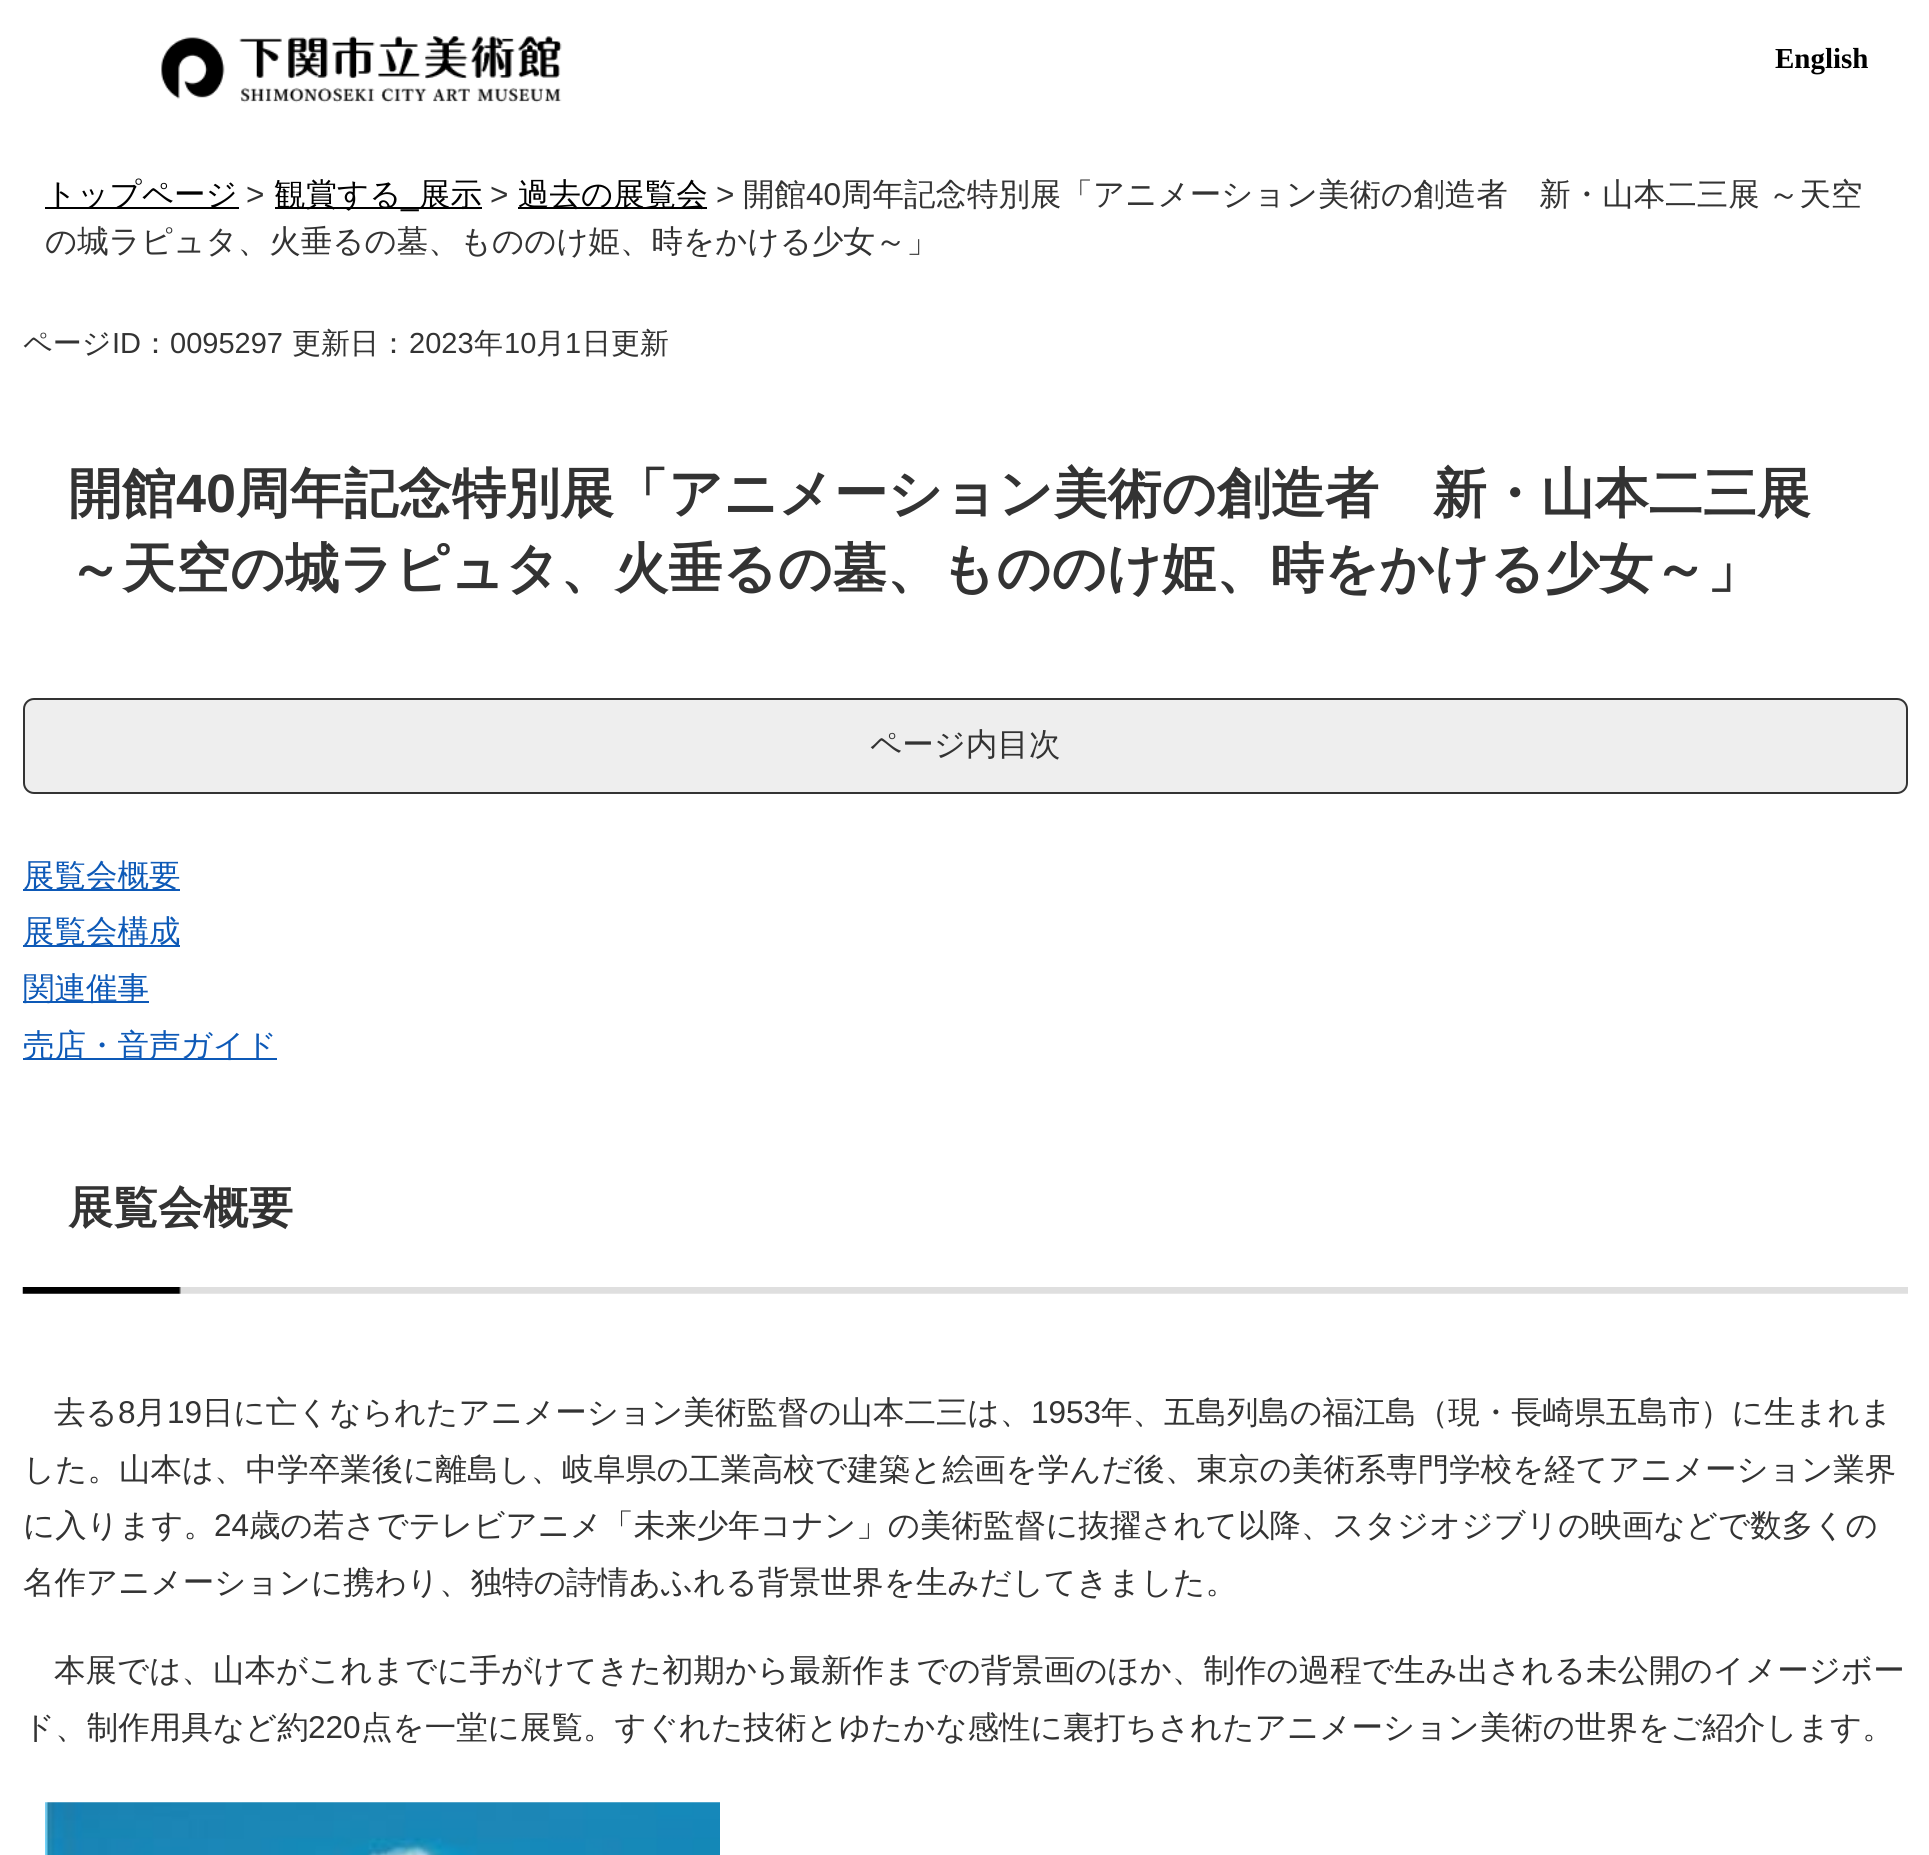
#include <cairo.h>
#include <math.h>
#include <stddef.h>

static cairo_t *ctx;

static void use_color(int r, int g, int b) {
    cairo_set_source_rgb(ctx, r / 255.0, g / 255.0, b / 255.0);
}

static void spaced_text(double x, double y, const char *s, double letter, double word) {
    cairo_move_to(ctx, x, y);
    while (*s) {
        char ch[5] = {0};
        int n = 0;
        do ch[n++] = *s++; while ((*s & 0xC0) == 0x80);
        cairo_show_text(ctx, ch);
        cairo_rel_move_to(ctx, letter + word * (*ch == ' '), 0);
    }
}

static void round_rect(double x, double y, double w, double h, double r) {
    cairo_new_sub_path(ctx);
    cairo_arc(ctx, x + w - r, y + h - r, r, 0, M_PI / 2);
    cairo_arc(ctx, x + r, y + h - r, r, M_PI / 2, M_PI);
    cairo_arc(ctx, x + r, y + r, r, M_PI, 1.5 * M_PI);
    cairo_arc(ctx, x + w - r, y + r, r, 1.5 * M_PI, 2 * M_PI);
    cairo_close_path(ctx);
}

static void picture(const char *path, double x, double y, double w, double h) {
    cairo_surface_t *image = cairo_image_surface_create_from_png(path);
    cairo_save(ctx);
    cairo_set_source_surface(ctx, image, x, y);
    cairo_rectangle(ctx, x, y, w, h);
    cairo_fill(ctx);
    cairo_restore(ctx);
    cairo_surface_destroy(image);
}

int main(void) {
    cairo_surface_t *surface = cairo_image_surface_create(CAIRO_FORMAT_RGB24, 1929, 1855);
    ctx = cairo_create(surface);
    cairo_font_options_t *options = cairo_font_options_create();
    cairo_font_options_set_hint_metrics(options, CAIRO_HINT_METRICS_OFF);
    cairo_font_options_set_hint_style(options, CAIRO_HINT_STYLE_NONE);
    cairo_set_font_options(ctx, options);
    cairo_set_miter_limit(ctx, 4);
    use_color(255, 255, 255);
    cairo_paint(ctx);
    picture("img1.png", 161, 36, 401, 67);
    cairo_select_font_face(ctx, "Liberation Serif", CAIRO_FONT_SLANT_NORMAL, CAIRO_FONT_WEIGHT_BOLD);
    cairo_set_font_size(ctx, 29);
    use_color(0, 0, 0);
    cairo_move_to(ctx, 1775, 68);
    cairo_show_text(ctx, "English");
    cairo_rectangle(ctx, 45, 207, 194, 2);
    cairo_fill(ctx);
    cairo_select_font_face(ctx, "WenQuanYi Zen Hei Medium", CAIRO_FONT_SLANT_NORMAL, CAIRO_FONT_WEIGHT_NORMAL);
    cairo_set_font_size(ctx, 31.5);
    cairo_move_to(ctx, 45, 205);
    cairo_show_text(ctx, "トップページ");
    cairo_select_font_face(ctx, "Liberation Sans", CAIRO_FONT_SLANT_NORMAL, CAIRO_FONT_WEIGHT_NORMAL);
    use_color(51, 51, 51);
    cairo_move_to(ctx, 246, 205);
    cairo_show_text(ctx, ">");
    use_color(0, 0, 0);
    cairo_rectangle(ctx, 275, 207, 207, 2);
    cairo_fill(ctx);
    cairo_select_font_face(ctx, "WenQuanYi Zen Hei Medium", CAIRO_FONT_SLANT_NORMAL, CAIRO_FONT_WEIGHT_NORMAL);
    cairo_move_to(ctx, 274, 205);
    cairo_show_text(ctx, "観賞する");
    cairo_move_to(ctx, 419, 205);
    cairo_show_text(ctx, "展示");
    cairo_select_font_face(ctx, "Liberation Sans", CAIRO_FONT_SLANT_NORMAL, CAIRO_FONT_WEIGHT_NORMAL);
    use_color(51, 51, 51);
    cairo_move_to(ctx, 490, 205);
    cairo_show_text(ctx, ">");
    use_color(0, 0, 0);
    cairo_rectangle(ctx, 518, 207, 189, 2);
    cairo_fill(ctx);
    cairo_select_font_face(ctx, "WenQuanYi Zen Hei Medium", CAIRO_FONT_SLANT_NORMAL, CAIRO_FONT_WEIGHT_NORMAL);
    cairo_move_to(ctx, 518, 205);
    cairo_show_text(ctx, "過去の展覧会");
    cairo_select_font_face(ctx, "Liberation Sans", CAIRO_FONT_SLANT_NORMAL, CAIRO_FONT_WEIGHT_NORMAL);
    use_color(51, 51, 51);
    cairo_move_to(ctx, 716, 205);
    cairo_show_text(ctx, ">");
    cairo_select_font_face(ctx, "WenQuanYi Zen Hei Medium", CAIRO_FONT_SLANT_NORMAL, CAIRO_FONT_WEIGHT_NORMAL);
    cairo_move_to(ctx, 743, 205);
    cairo_show_text(ctx, "開館");
    cairo_select_font_face(ctx, "Liberation Sans", CAIRO_FONT_SLANT_NORMAL, CAIRO_FONT_WEIGHT_NORMAL);
    cairo_move_to(ctx, 806, 205);
    cairo_show_text(ctx, "40");
    cairo_select_font_face(ctx, "WenQuanYi Zen Hei Medium", CAIRO_FONT_SLANT_NORMAL, CAIRO_FONT_WEIGHT_NORMAL);
    spaced_text(841, 205, "周年記念特別展「アニメーション美術の創造者　新・山本二三展 ～天空", 0, -1);
    cairo_select_font_face(ctx, "Liberation Sans", CAIRO_FONT_SLANT_NORMAL, CAIRO_FONT_WEIGHT_NORMAL);
    use_color(0, 0, 0);
    cairo_move_to(ctx, 401, 205);
    cairo_show_text(ctx, "_");
    cairo_select_font_face(ctx, "WenQuanYi Zen Hei Medium", CAIRO_FONT_SLANT_NORMAL, CAIRO_FONT_WEIGHT_NORMAL);
    use_color(51, 51, 51);
    cairo_move_to(ctx, 45, 252);
    cairo_show_text(ctx, "の城ラピュタ、火垂るの墓、もののけ姫、時をかける少女～」");
    cairo_set_font_size(ctx, 29);
    cairo_move_to(ctx, 23, 353);
    cairo_show_text(ctx, "ページ");
    cairo_select_font_face(ctx, "Liberation Sans", CAIRO_FONT_SLANT_NORMAL, CAIRO_FONT_WEIGHT_NORMAL);
    cairo_move_to(ctx, 112, 353);
    cairo_show_text(ctx, "ID");
    cairo_select_font_face(ctx, "WenQuanYi Zen Hei Medium", CAIRO_FONT_SLANT_NORMAL, CAIRO_FONT_WEIGHT_NORMAL);
    cairo_move_to(ctx, 141, 353);
    cairo_show_text(ctx, "：");
    cairo_select_font_face(ctx, "Liberation Sans", CAIRO_FONT_SLANT_NORMAL, CAIRO_FONT_WEIGHT_NORMAL);
    cairo_move_to(ctx, 170, 353);
    cairo_show_text(ctx, "0095297");
    cairo_select_font_face(ctx, "WenQuanYi Zen Hei Medium", CAIRO_FONT_SLANT_NORMAL, CAIRO_FONT_WEIGHT_NORMAL);
    cairo_move_to(ctx, 292, 353);
    cairo_show_text(ctx, "更新日：");
    cairo_select_font_face(ctx, "Liberation Sans", CAIRO_FONT_SLANT_NORMAL, CAIRO_FONT_WEIGHT_NORMAL);
    cairo_move_to(ctx, 409, 353);
    cairo_show_text(ctx, "2023");
    cairo_select_font_face(ctx, "WenQuanYi Zen Hei Medium", CAIRO_FONT_SLANT_NORMAL, CAIRO_FONT_WEIGHT_NORMAL);
    cairo_move_to(ctx, 474, 353);
    cairo_show_text(ctx, "年");
    cairo_select_font_face(ctx, "Liberation Sans", CAIRO_FONT_SLANT_NORMAL, CAIRO_FONT_WEIGHT_NORMAL);
    cairo_move_to(ctx, 504, 353);
    cairo_show_text(ctx, "10");
    cairo_select_font_face(ctx, "WenQuanYi Zen Hei Medium", CAIRO_FONT_SLANT_NORMAL, CAIRO_FONT_WEIGHT_NORMAL);
    cairo_move_to(ctx, 536, 353);
    cairo_show_text(ctx, "月");
    cairo_select_font_face(ctx, "Liberation Sans", CAIRO_FONT_SLANT_NORMAL, CAIRO_FONT_WEIGHT_NORMAL);
    cairo_move_to(ctx, 565, 353);
    cairo_show_text(ctx, "1");
    cairo_select_font_face(ctx, "WenQuanYi Zen Hei Medium", CAIRO_FONT_SLANT_NORMAL, CAIRO_FONT_WEIGHT_NORMAL);
    cairo_move_to(ctx, 582, 353);
    cairo_show_text(ctx, "日更新");
    cairo_select_font_face(ctx, "WenQuanYi Zen Hei", CAIRO_FONT_SLANT_NORMAL, CAIRO_FONT_WEIGHT_BOLD);
    cairo_set_font_size(ctx, 54);
    cairo_move_to(ctx, 68, 512);
    cairo_show_text(ctx, "開館");
    cairo_select_font_face(ctx, "Liberation Sans", CAIRO_FONT_SLANT_NORMAL, CAIRO_FONT_WEIGHT_BOLD);
    cairo_move_to(ctx, 176, 512);
    cairo_show_text(ctx, "40");
    cairo_select_font_face(ctx, "WenQuanYi Zen Hei", CAIRO_FONT_SLANT_NORMAL, CAIRO_FONT_WEIGHT_BOLD);
    cairo_move_to(ctx, 236, 512);
    cairo_show_text(ctx, "周年記念特別展「アニメーション美術の創造者　新・山本二三展");
    cairo_move_to(ctx, 68, 587);
    cairo_show_text(ctx, "～天空の城ラピュタ、火垂るの墓、もののけ姫、時をかける少女～」");
    use_color(238, 238, 238);
    round_rect(24, 699, 1883, 94, 10);
    cairo_fill_preserve(ctx);
    use_color(51, 51, 51);
    cairo_stroke(ctx);
    cairo_select_font_face(ctx, "WenQuanYi Zen Hei Medium", CAIRO_FONT_SLANT_NORMAL, CAIRO_FONT_WEIGHT_NORMAL);
    cairo_set_font_size(ctx, 31.5);
    cairo_move_to(ctx, 870, 755);
    cairo_show_text(ctx, "ページ内目次");
    use_color(13, 89, 183);
    cairo_rectangle(ctx, 23, 889, 157, 2);
    cairo_fill(ctx);
    cairo_move_to(ctx, 23, 886);
    cairo_show_text(ctx, "展覧会概要");
    cairo_rectangle(ctx, 23, 945, 157, 2);
    cairo_fill(ctx);
    cairo_move_to(ctx, 23, 942);
    cairo_show_text(ctx, "展覧会構成");
    cairo_rectangle(ctx, 23, 1001, 126, 2);
    cairo_fill(ctx);
    cairo_move_to(ctx, 23, 999);
    cairo_show_text(ctx, "関連催事");
    cairo_rectangle(ctx, 23, 1058, 254, 2);
    cairo_fill(ctx);
    cairo_move_to(ctx, 23, 1056);
    cairo_show_text(ctx, "売店・音声ガイド");
    picture("img2.png", 22, 1287, 1886, 7);
    cairo_select_font_face(ctx, "WenQuanYi Zen Hei", CAIRO_FONT_SLANT_NORMAL, CAIRO_FONT_WEIGHT_BOLD);
    cairo_set_font_size(ctx, 45);
    use_color(51, 51, 51);
    cairo_move_to(ctx, 68, 1223);
    cairo_show_text(ctx, "展覧会概要");
    cairo_select_font_face(ctx, "WenQuanYi Zen Hei Medium", CAIRO_FONT_SLANT_NORMAL, CAIRO_FONT_WEIGHT_NORMAL);
    cairo_set_font_size(ctx, 31.5);
    cairo_move_to(ctx, 54, 1423);
    cairo_show_text(ctx, "去る");
    cairo_select_font_face(ctx, "Liberation Sans", CAIRO_FONT_SLANT_NORMAL, CAIRO_FONT_WEIGHT_NORMAL);
    cairo_move_to(ctx, 118, 1423);
    cairo_show_text(ctx, "8");
    cairo_select_font_face(ctx, "WenQuanYi Zen Hei Medium", CAIRO_FONT_SLANT_NORMAL, CAIRO_FONT_WEIGHT_NORMAL);
    cairo_move_to(ctx, 135, 1423);
    cairo_show_text(ctx, "月");
    cairo_select_font_face(ctx, "Liberation Sans", CAIRO_FONT_SLANT_NORMAL, CAIRO_FONT_WEIGHT_NORMAL);
    cairo_move_to(ctx, 167, 1423);
    cairo_show_text(ctx, "19");
    cairo_select_font_face(ctx, "WenQuanYi Zen Hei Medium", CAIRO_FONT_SLANT_NORMAL, CAIRO_FONT_WEIGHT_NORMAL);
    cairo_move_to(ctx, 202, 1423);
    cairo_show_text(ctx, "日に亡くなられたアニメーション美術監督の山本二三は、");
    cairo_select_font_face(ctx, "Liberation Sans", CAIRO_FONT_SLANT_NORMAL, CAIRO_FONT_WEIGHT_NORMAL);
    cairo_move_to(ctx, 1031, 1423);
    cairo_show_text(ctx, "1953");
    cairo_select_font_face(ctx, "WenQuanYi Zen Hei Medium", CAIRO_FONT_SLANT_NORMAL, CAIRO_FONT_WEIGHT_NORMAL);
    cairo_move_to(ctx, 1101, 1423);
    cairo_show_text(ctx, "年、五島列島の福江島（現・長崎県五島市）に生まれま");
    cairo_move_to(ctx, 23, 1480);
    cairo_show_text(ctx, "した。山本は、中学卒業後に離島し、岐阜県の工業高校で建築と絵画を学んだ後、東京の美術系専門学校を経てアニメーション業界");
    cairo_move_to(ctx, 23, 1536);
    cairo_show_text(ctx, "に入ります。");
    cairo_select_font_face(ctx, "Liberation Sans", CAIRO_FONT_SLANT_NORMAL, CAIRO_FONT_WEIGHT_NORMAL);
    cairo_move_to(ctx, 214, 1536);
    cairo_show_text(ctx, "24");
    cairo_select_font_face(ctx, "WenQuanYi Zen Hei Medium", CAIRO_FONT_SLANT_NORMAL, CAIRO_FONT_WEIGHT_NORMAL);
    cairo_move_to(ctx, 249, 1536);
    cairo_show_text(ctx, "歳の若さでテレビアニメ「未来少年コナン」の美術監督に抜擢されて以降、スタジオジブリの映画などで数多くの");
    cairo_move_to(ctx, 23, 1593);
    cairo_show_text(ctx, "名作アニメーションに携わり、独特の詩情あふれる背景世界を生みだしてきました。");
    cairo_move_to(ctx, 54, 1681);
    cairo_show_text(ctx, "本展では、山本がこれまでに手がけてきた初期から最新作までの背景画のほか、制作の過程で生み出される未公開のイメージボー");
    cairo_move_to(ctx, 23, 1738);
    cairo_show_text(ctx, "ド、制作用具など約");
    cairo_select_font_face(ctx, "Liberation Sans", CAIRO_FONT_SLANT_NORMAL, CAIRO_FONT_WEIGHT_NORMAL);
    cairo_move_to(ctx, 308, 1738);
    cairo_show_text(ctx, "220");
    cairo_select_font_face(ctx, "WenQuanYi Zen Hei Medium", CAIRO_FONT_SLANT_NORMAL, CAIRO_FONT_WEIGHT_NORMAL);
    cairo_move_to(ctx, 361, 1738);
    cairo_show_text(ctx, "点を一堂に展覧。すぐれた技術とゆたかな感性に裏打ちされたアニメーション美術の世界をご紹介します。");
    picture("img3.png", 45, 1802, 675, 53);
    cairo_surface_write_to_png(surface, "result.png");
    cairo_font_options_destroy(options);
    cairo_destroy(ctx);
    cairo_surface_destroy(surface);
    return 0;
}
